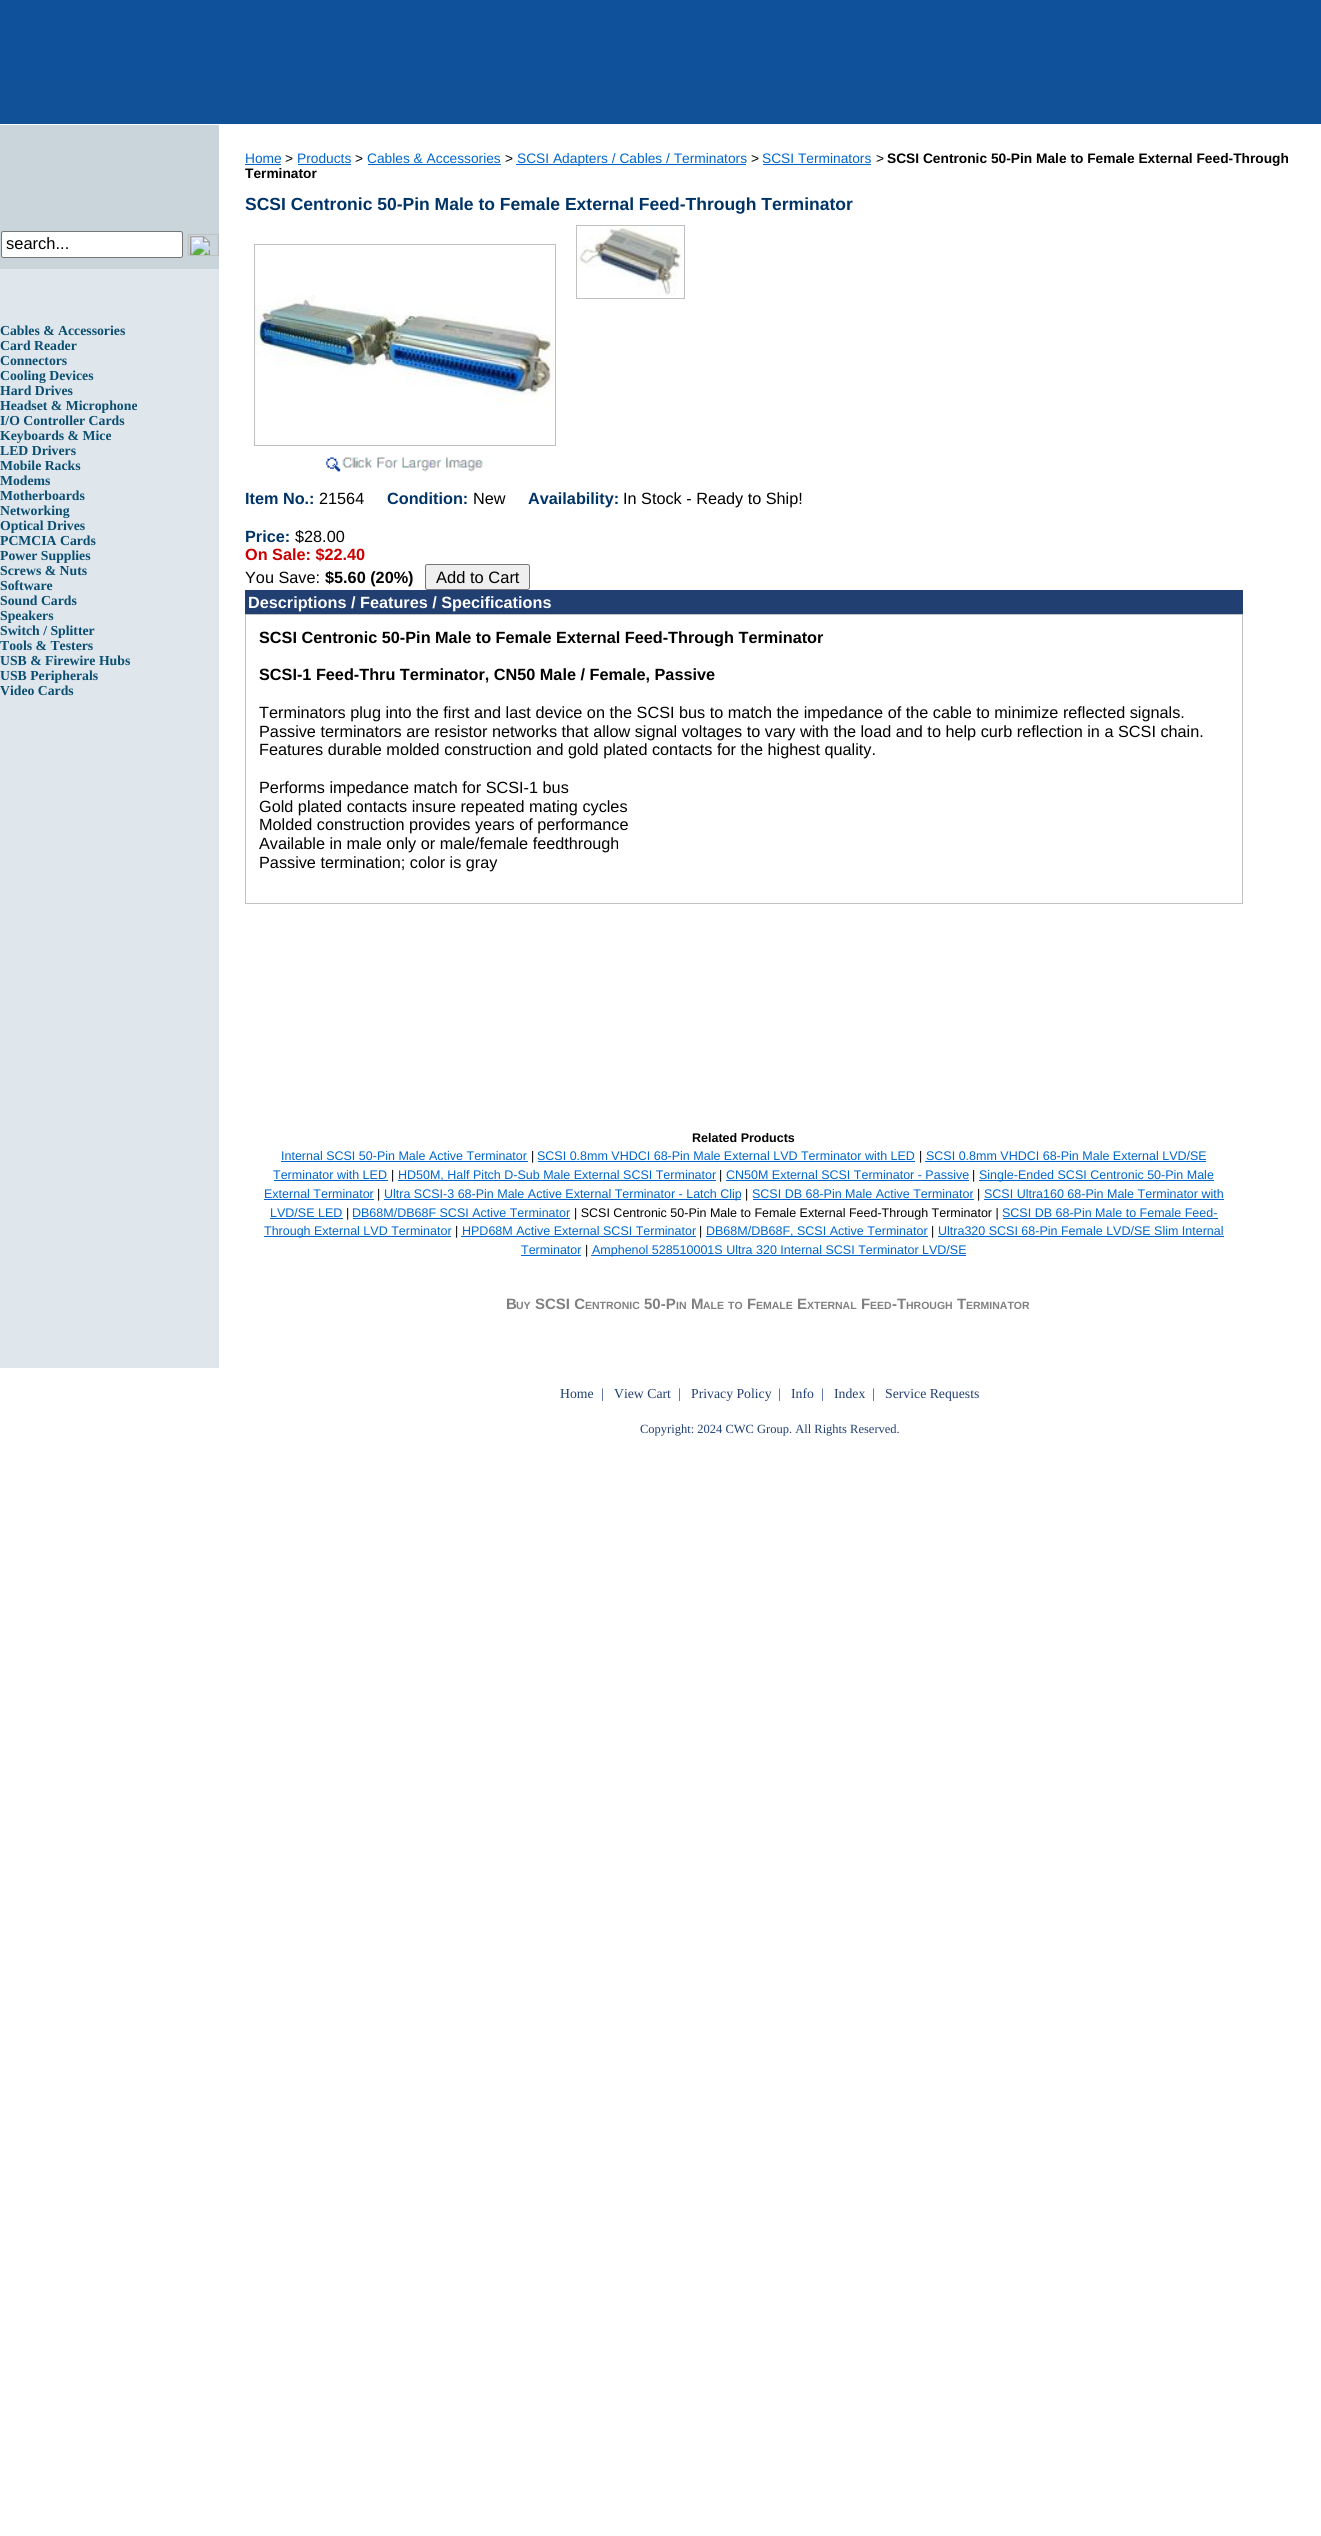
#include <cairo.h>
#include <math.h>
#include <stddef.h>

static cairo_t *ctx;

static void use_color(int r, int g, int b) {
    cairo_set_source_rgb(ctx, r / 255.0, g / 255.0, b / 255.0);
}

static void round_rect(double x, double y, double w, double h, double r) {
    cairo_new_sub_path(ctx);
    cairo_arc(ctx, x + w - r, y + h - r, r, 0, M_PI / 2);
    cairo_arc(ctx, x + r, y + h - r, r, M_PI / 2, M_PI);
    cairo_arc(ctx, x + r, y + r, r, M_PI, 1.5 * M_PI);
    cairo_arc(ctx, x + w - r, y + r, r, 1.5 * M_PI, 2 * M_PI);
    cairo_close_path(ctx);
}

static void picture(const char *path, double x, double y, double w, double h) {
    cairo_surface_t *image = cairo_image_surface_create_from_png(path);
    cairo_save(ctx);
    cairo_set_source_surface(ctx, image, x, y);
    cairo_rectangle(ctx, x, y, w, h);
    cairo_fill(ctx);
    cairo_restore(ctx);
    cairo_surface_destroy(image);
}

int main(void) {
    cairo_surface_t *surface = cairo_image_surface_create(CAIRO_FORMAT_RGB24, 1321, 2536);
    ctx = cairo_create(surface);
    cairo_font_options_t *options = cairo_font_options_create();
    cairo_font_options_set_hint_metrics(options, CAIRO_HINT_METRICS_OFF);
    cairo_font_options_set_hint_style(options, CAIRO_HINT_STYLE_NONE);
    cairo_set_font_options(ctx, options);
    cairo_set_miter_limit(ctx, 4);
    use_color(255, 255, 255);
    cairo_paint(ctx);
    use_color(17, 81, 151);
    cairo_rectangle(ctx, 0, 80, 1321, 44);
    cairo_fill(ctx);
    use_color(16, 81, 156);
    cairo_rectangle(ctx, 0, 0, 1321, 80);
    cairo_fill(ctx);
    use_color(202, 213, 219);
    cairo_rectangle(ctx, 0, 125, 219, 144);
    cairo_fill(ctx);
    use_color(255, 255, 255);
    round_rect(1.5, 231.5, 181, 26, 2);
    cairo_fill_preserve(ctx);
    use_color(118, 118, 118);
    cairo_set_line_width(ctx, 1);
    cairo_stroke(ctx);
    cairo_select_font_face(ctx, "Liberation Sans", CAIRO_FONT_SLANT_NORMAL, CAIRO_FONT_WEIGHT_NORMAL);
    cairo_set_font_size(ctx, 16.5);
    use_color(0, 0, 0);
    cairo_move_to(ctx, 6, 249);
    cairo_show_text(ctx, "search...");
    picture("img1.png", 187, 234, 31, 22);
    cairo_rectangle(ctx, 188.5, 234.5, 30, 21);
    use_color(192, 192, 192);
    cairo_stroke(ctx);
    use_color(223, 230, 236);
    cairo_rectangle(ctx, 0, 269, 219, 1099);
    cairo_fill(ctx);
    cairo_select_font_face(ctx, "Liberation Serif", CAIRO_FONT_SLANT_NORMAL, CAIRO_FONT_WEIGHT_BOLD);
    cairo_set_font_size(ctx, 13.75);
    use_color(10, 78, 113);
    cairo_move_to(ctx, 0, 335);
    cairo_show_text(ctx, "Cables & Accessories");
    cairo_move_to(ctx, 0, 350);
    cairo_show_text(ctx, "Card Reader");
    cairo_move_to(ctx, 0, 365);
    cairo_show_text(ctx, "Connectors");
    cairo_move_to(ctx, 0, 380);
    cairo_show_text(ctx, "Cooling Devices");
    cairo_move_to(ctx, 0, 395);
    cairo_show_text(ctx, "Hard Drives");
    cairo_move_to(ctx, 0, 410);
    cairo_show_text(ctx, "Headset & Microphone");
    cairo_move_to(ctx, 0, 425);
    cairo_show_text(ctx, "I/O Controller Cards");
    cairo_move_to(ctx, 0, 440);
    cairo_show_text(ctx, "Keyboards & Mice");
    cairo_move_to(ctx, 0, 455);
    cairo_show_text(ctx, "LED Drivers");
    cairo_move_to(ctx, 0, 470);
    cairo_show_text(ctx, "Mobile Racks");
    cairo_move_to(ctx, 0, 485);
    cairo_show_text(ctx, "Modems");
    cairo_move_to(ctx, 0, 500);
    cairo_show_text(ctx, "Motherboards");
    cairo_move_to(ctx, 0, 515);
    cairo_show_text(ctx, "Networking");
    cairo_move_to(ctx, 0, 530);
    cairo_show_text(ctx, "Optical Drives");
    cairo_move_to(ctx, 0, 545);
    cairo_show_text(ctx, "PCMCIA Cards");
    cairo_move_to(ctx, 0, 560);
    cairo_show_text(ctx, "Power Supplies");
    cairo_move_to(ctx, 0, 575);
    cairo_show_text(ctx, "Screws & Nuts");
    cairo_move_to(ctx, 0, 590);
    cairo_show_text(ctx, "Software");
    cairo_move_to(ctx, 0, 605);
    cairo_show_text(ctx, "Sound Cards");
    cairo_move_to(ctx, 0, 620);
    cairo_show_text(ctx, "Speakers");
    cairo_move_to(ctx, 0, 635);
    cairo_show_text(ctx, "Switch / Splitter");
    cairo_move_to(ctx, 0, 650);
    cairo_show_text(ctx, "Tools & Testers");
    cairo_move_to(ctx, 0, 665);
    cairo_show_text(ctx, "USB & Firewire Hubs");
    cairo_move_to(ctx, 0, 680);
    cairo_show_text(ctx, "USB Peripherals");
    cairo_move_to(ctx, 0, 695);
    cairo_show_text(ctx, "Video Cards");
    cairo_select_font_face(ctx, "Liberation Sans", CAIRO_FONT_SLANT_NORMAL, CAIRO_FONT_WEIGHT_NORMAL);
    use_color(0, 102, 204);
    cairo_move_to(ctx, 245, 163);
    cairo_show_text(ctx, "Home");
    cairo_rectangle(ctx, 245, 164, 36, 1);
    cairo_fill(ctx);
    use_color(0, 0, 0);
    cairo_move_to(ctx, 285, 163);
    cairo_show_text(ctx, ">");
    use_color(0, 102, 204);
    cairo_move_to(ctx, 297, 163);
    cairo_show_text(ctx, "Products");
    cairo_rectangle(ctx, 298, 164, 53, 1);
    cairo_fill(ctx);
    use_color(0, 0, 0);
    cairo_move_to(ctx, 355, 163);
    cairo_show_text(ctx, ">");
    use_color(0, 102, 204);
    cairo_move_to(ctx, 367, 163);
    cairo_show_text(ctx, "Cables & Accessories");
    cairo_rectangle(ctx, 368, 164, 133, 1);
    cairo_fill(ctx);
    use_color(0, 0, 0);
    cairo_move_to(ctx, 505, 163);
    cairo_show_text(ctx, ">");
    use_color(0, 102, 204);
    cairo_rectangle(ctx, 516, 164, 230, 1);
    cairo_fill(ctx);
    cairo_move_to(ctx, 517, 163);
    cairo_show_text(ctx, "SCSI Adapters / Cables / Terminators");
    use_color(0, 0, 0);
    cairo_move_to(ctx, 751, 163);
    cairo_show_text(ctx, ">");
    use_color(0, 102, 204);
    cairo_move_to(ctx, 762, 163);
    cairo_show_text(ctx, "SCSI Terminators");
    cairo_rectangle(ctx, 763, 164, 108, 1);
    cairo_fill(ctx);
    use_color(0, 0, 0);
    cairo_move_to(ctx, 876, 163);
    cairo_show_text(ctx, ">");
    cairo_select_font_face(ctx, "Liberation Sans", CAIRO_FONT_SLANT_NORMAL, CAIRO_FONT_WEIGHT_BOLD);
    cairo_move_to(ctx, 887, 163);
    cairo_show_text(ctx, "SCSI Centronic 50-Pin Male to Female External Feed-Through");
    cairo_move_to(ctx, 245, 178);
    cairo_show_text(ctx, "Terminator");
    cairo_set_font_size(ctx, 17.5);
    use_color(0, 51, 102);
    cairo_move_to(ctx, 245, 210);
    cairo_show_text(ctx, "SCSI Centronic 50-Pin Male to Female External Feed-Through Terminator");
    cairo_rectangle(ctx, 254.5, 244.5, 301, 201);
    use_color(192, 192, 192);
    cairo_stroke(ctx);
    picture("img2.png", 255, 295, 300, 110);
    picture("img3.png", 326, 457, 157, 15);
    cairo_rectangle(ctx, 576.5, 225.5, 108, 73);
    cairo_stroke(ctx);
    picture("img4.png", 577, 226, 106, 70);
    cairo_set_font_size(ctx, 16.25);
    use_color(0, 51, 102);
    cairo_move_to(ctx, 245, 504);
    cairo_show_text(ctx, "Item No.:");
    cairo_select_font_face(ctx, "Liberation Sans", CAIRO_FONT_SLANT_NORMAL, CAIRO_FONT_WEIGHT_NORMAL);
    use_color(0, 0, 0);
    cairo_move_to(ctx, 319, 504);
    cairo_show_text(ctx, "21564");
    cairo_select_font_face(ctx, "Liberation Sans", CAIRO_FONT_SLANT_NORMAL, CAIRO_FONT_WEIGHT_BOLD);
    use_color(0, 51, 102);
    cairo_move_to(ctx, 387, 504);
    cairo_show_text(ctx, "Condition:");
    cairo_select_font_face(ctx, "Liberation Sans", CAIRO_FONT_SLANT_NORMAL, CAIRO_FONT_WEIGHT_NORMAL);
    use_color(0, 0, 0);
    cairo_move_to(ctx, 473, 504);
    cairo_show_text(ctx, "New");
    cairo_select_font_face(ctx, "Liberation Sans", CAIRO_FONT_SLANT_NORMAL, CAIRO_FONT_WEIGHT_BOLD);
    use_color(0, 51, 102);
    cairo_move_to(ctx, 528, 504);
    cairo_show_text(ctx, "Availability:");
    cairo_select_font_face(ctx, "Liberation Sans", CAIRO_FONT_SLANT_NORMAL, CAIRO_FONT_WEIGHT_NORMAL);
    use_color(0, 0, 0);
    cairo_move_to(ctx, 623, 504);
    cairo_show_text(ctx, "In Stock - Ready to Ship!");
    cairo_select_font_face(ctx, "Liberation Sans", CAIRO_FONT_SLANT_NORMAL, CAIRO_FONT_WEIGHT_BOLD);
    use_color(0, 51, 102);
    cairo_move_to(ctx, 245, 542);
    cairo_show_text(ctx, "Price:");
    cairo_select_font_face(ctx, "Liberation Sans", CAIRO_FONT_SLANT_NORMAL, CAIRO_FONT_WEIGHT_NORMAL);
    use_color(0, 0, 0);
    cairo_move_to(ctx, 295, 542);
    cairo_show_text(ctx, "$28.00");
    cairo_select_font_face(ctx, "Liberation Sans", CAIRO_FONT_SLANT_NORMAL, CAIRO_FONT_WEIGHT_BOLD);
    use_color(204, 0, 0);
    cairo_move_to(ctx, 245, 560);
    cairo_show_text(ctx, "On Sale: $22.40");
    cairo_select_font_face(ctx, "Liberation Sans", CAIRO_FONT_SLANT_NORMAL, CAIRO_FONT_WEIGHT_NORMAL);
    use_color(0, 0, 0);
    cairo_move_to(ctx, 245, 583);
    cairo_show_text(ctx, "You Save:");
    cairo_select_font_face(ctx, "Liberation Sans", CAIRO_FONT_SLANT_NORMAL, CAIRO_FONT_WEIGHT_BOLD);
    cairo_move_to(ctx, 325, 583);
    cairo_show_text(ctx, "$5.60 (20%)");
    use_color(239, 239, 239);
    round_rect(425.5, 564.5, 104, 25, 2);
    cairo_fill_preserve(ctx);
    use_color(118, 118, 118);
    cairo_stroke(ctx);
    cairo_select_font_face(ctx, "Liberation Sans", CAIRO_FONT_SLANT_NORMAL, CAIRO_FONT_WEIGHT_NORMAL);
    cairo_set_font_size(ctx, 16.5);
    use_color(0, 0, 0);
    cairo_move_to(ctx, 436, 583);
    cairo_show_text(ctx, "Add to Cart");
    use_color(33, 63, 113);
    cairo_rectangle(ctx, 245, 590, 998, 24);
    cairo_fill(ctx);
    cairo_select_font_face(ctx, "Liberation Sans", CAIRO_FONT_SLANT_NORMAL, CAIRO_FONT_WEIGHT_BOLD);
    cairo_set_font_size(ctx, 16.25);
    use_color(255, 255, 255);
    cairo_move_to(ctx, 248, 608);
    cairo_show_text(ctx, "Descriptions / Features / Specifications");
    cairo_rectangle(ctx, 245.5, 614.5, 997, 289);
    use_color(192, 192, 192);
    cairo_stroke(ctx);
    use_color(0, 0, 0);
    cairo_move_to(ctx, 259, 643);
    cairo_show_text(ctx, "SCSI Centronic 50-Pin Male to Female External Feed-Through Terminator");
    cairo_move_to(ctx, 259, 680);
    cairo_show_text(ctx, "SCSI-1 Feed-Thru Terminator, CN50 Male / Female, Passive");
    cairo_select_font_face(ctx, "Liberation Sans", CAIRO_FONT_SLANT_NORMAL, CAIRO_FONT_WEIGHT_NORMAL);
    cairo_move_to(ctx, 259, 718);
    cairo_show_text(ctx, "Terminators plug into the first and last device on the SCSI bus to match the impedance of the cable to minimize reflected signals.");
    cairo_move_to(ctx, 259, 737);
    cairo_show_text(ctx, "Passive terminators are resistor networks that allow signal voltages to vary with the load and to help curb reflection in a SCSI chain.");
    cairo_move_to(ctx, 259, 755);
    cairo_show_text(ctx, "Features durable molded construction and gold plated contacts for the highest quality.");
    cairo_move_to(ctx, 259, 793);
    cairo_show_text(ctx, "Performs impedance match for SCSI-1 bus");
    cairo_move_to(ctx, 259, 812);
    cairo_show_text(ctx, "Gold plated contacts insure repeated mating cycles");
    cairo_move_to(ctx, 259, 830);
    cairo_show_text(ctx, "Molded construction provides years of performance");
    cairo_move_to(ctx, 259, 849);
    cairo_show_text(ctx, "Available in male only or male/female feedthrough");
    cairo_move_to(ctx, 259, 868);
    cairo_show_text(ctx, "Passive termination; color is gray");
    cairo_select_font_face(ctx, "Liberation Sans", CAIRO_FONT_SLANT_NORMAL, CAIRO_FONT_WEIGHT_BOLD);
    cairo_set_font_size(ctx, 12.5);
    cairo_move_to(ctx, 692, 1142);
    cairo_show_text(ctx, "Related Products");
    cairo_select_font_face(ctx, "Liberation Sans", CAIRO_FONT_SLANT_NORMAL, CAIRO_FONT_WEIGHT_NORMAL);
    use_color(0, 102, 204);
    cairo_move_to(ctx, 281, 1160);
    cairo_show_text(ctx, "Internal SCSI 50-Pin Male Active Terminator");
    cairo_rectangle(ctx, 281, 1161, 247, 1);
    cairo_fill(ctx);
    use_color(0, 0, 0);
    cairo_move_to(ctx, 531, 1160);
    cairo_show_text(ctx, "|");
    use_color(0, 102, 204);
    cairo_move_to(ctx, 537, 1160);
    cairo_show_text(ctx, "SCSI 0.8mm VHDCI 68-Pin Male External LVD Terminator with LED");
    cairo_rectangle(ctx, 538, 1161, 377, 1);
    cairo_fill(ctx);
    use_color(0, 0, 0);
    cairo_move_to(ctx, 919, 1160);
    cairo_show_text(ctx, "|");
    use_color(0, 102, 204);
    cairo_move_to(ctx, 926, 1160);
    cairo_show_text(ctx, "SCSI 0.8mm VHDCI 68-Pin Male External LVD/SE");
    cairo_rectangle(ctx, 925, 1161, 281, 1);
    cairo_fill(ctx);
    cairo_move_to(ctx, 273, 1179);
    cairo_show_text(ctx, "Terminator with LED");
    cairo_rectangle(ctx, 274, 1180, 114, 1);
    cairo_fill(ctx);
    use_color(0, 0, 0);
    cairo_move_to(ctx, 391, 1179);
    cairo_show_text(ctx, "|");
    use_color(0, 102, 204);
    cairo_rectangle(ctx, 398, 1180, 318, 1);
    cairo_fill(ctx);
    cairo_move_to(ctx, 398, 1179);
    cairo_show_text(ctx, "HD50M, Half Pitch D-Sub Male External SCSI Terminator");
    use_color(0, 0, 0);
    cairo_move_to(ctx, 719, 1179);
    cairo_show_text(ctx, "|");
    use_color(0, 102, 204);
    cairo_move_to(ctx, 726, 1179);
    cairo_show_text(ctx, "CN50M External SCSI Terminator - Passive");
    cairo_rectangle(ctx, 726, 1180, 243, 1);
    cairo_fill(ctx);
    use_color(0, 0, 0);
    cairo_move_to(ctx, 972, 1179);
    cairo_show_text(ctx, "|");
    use_color(0, 102, 204);
    cairo_rectangle(ctx, 979, 1180, 235, 1);
    cairo_fill(ctx);
    cairo_move_to(ctx, 979, 1179);
    cairo_show_text(ctx, "Single-Ended SCSI Centronic 50-Pin Male");
    cairo_move_to(ctx, 264, 1198);
    cairo_show_text(ctx, "External Terminator");
    cairo_rectangle(ctx, 264, 1199, 110, 1);
    cairo_fill(ctx);
    use_color(0, 0, 0);
    cairo_move_to(ctx, 377, 1198);
    cairo_show_text(ctx, "|");
    use_color(0, 102, 204);
    cairo_rectangle(ctx, 384, 1199, 357, 1);
    cairo_fill(ctx);
    cairo_move_to(ctx, 384, 1198);
    cairo_show_text(ctx, "Ultra SCSI-3 68-Pin Male Active External Terminator - Latch Clip");
    use_color(0, 0, 0);
    cairo_move_to(ctx, 745, 1198);
    cairo_show_text(ctx, "|");
    use_color(0, 102, 204);
    cairo_move_to(ctx, 752, 1198);
    cairo_show_text(ctx, "SCSI DB 68-Pin Male Active Terminator");
    cairo_rectangle(ctx, 753, 1199, 221, 1);
    cairo_fill(ctx);
    use_color(0, 0, 0);
    cairo_move_to(ctx, 977, 1198);
    cairo_show_text(ctx, "|");
    use_color(0, 102, 204);
    cairo_move_to(ctx, 984, 1198);
    cairo_show_text(ctx, "SCSI Ultra160 68-Pin Male Terminator with");
    cairo_rectangle(ctx, 984, 1199, 240, 1);
    cairo_fill(ctx);
    cairo_move_to(ctx, 270, 1217);
    cairo_show_text(ctx, "LVD/SE LED");
    cairo_rectangle(ctx, 270, 1218, 73, 1);
    cairo_fill(ctx);
    use_color(0, 0, 0);
    cairo_move_to(ctx, 346, 1217);
    cairo_show_text(ctx, "|");
    use_color(0, 102, 204);
    cairo_move_to(ctx, 352, 1217);
    cairo_show_text(ctx, "DB68M/DB68F SCSI Active Terminator");
    cairo_rectangle(ctx, 353, 1218, 217, 1);
    cairo_fill(ctx);
    use_color(0, 0, 0);
    cairo_move_to(ctx, 574, 1217);
    cairo_show_text(ctx, "| SCSI Centronic 50-Pin Male to Female External Feed-Through Terminator |");
    use_color(0, 102, 204);
    cairo_move_to(ctx, 1002, 1217);
    cairo_show_text(ctx, "SCSI DB 68-Pin Male to Female Feed-");
    cairo_rectangle(ctx, 1003, 1218, 215, 1);
    cairo_fill(ctx);
    cairo_rectangle(ctx, 264, 1236, 187, 1);
    cairo_fill(ctx);
    cairo_move_to(ctx, 264, 1235);
    cairo_show_text(ctx, "Through External LVD Terminator");
    use_color(0, 0, 0);
    cairo_move_to(ctx, 455, 1235);
    cairo_show_text(ctx, "|");
    use_color(0, 102, 204);
    cairo_move_to(ctx, 462, 1235);
    cairo_show_text(ctx, "HPD68M Active External SCSI Terminator");
    cairo_rectangle(ctx, 461, 1236, 235, 1);
    cairo_fill(ctx);
    use_color(0, 0, 0);
    cairo_move_to(ctx, 699, 1235);
    cairo_show_text(ctx, "|");
    use_color(0, 102, 204);
    cairo_rectangle(ctx, 706, 1236, 222, 1);
    cairo_fill(ctx);
    cairo_move_to(ctx, 706, 1235);
    cairo_show_text(ctx, "DB68M/DB68F, SCSI Active Terminator");
    use_color(0, 0, 0);
    cairo_move_to(ctx, 931, 1235);
    cairo_show_text(ctx, "|");
    use_color(0, 102, 204);
    cairo_move_to(ctx, 938, 1235);
    cairo_show_text(ctx, "Ultra320 SCSI 68-Pin Female LVD/SE Slim Internal");
    cairo_rectangle(ctx, 938, 1236, 286, 1);
    cairo_fill(ctx);
    cairo_move_to(ctx, 521, 1254);
    cairo_show_text(ctx, "Terminator");
    cairo_rectangle(ctx, 521, 1255, 60, 1);
    cairo_fill(ctx);
    use_color(0, 0, 0);
    cairo_move_to(ctx, 585, 1254);
    cairo_show_text(ctx, "|");
    use_color(0, 102, 204);
    cairo_rectangle(ctx, 591, 1255, 375, 1);
    cairo_fill(ctx);
    cairo_move_to(ctx, 592, 1254);
    cairo_show_text(ctx, "Amphenol 528510001S Ultra 320 Internal SCSI Terminator LVD/SE");
    cairo_select_font_face(ctx, "Liberation Sans", CAIRO_FONT_SLANT_NORMAL, CAIRO_FONT_WEIGHT_BOLD);
    cairo_set_font_size(ctx, 15);
    use_color(128, 128, 128);
    cairo_move_to(ctx, 506, 1309);
    cairo_show_text(ctx, "B");
    cairo_set_font_size(ctx, 10.5);
    cairo_move_to(ctx, 516, 1309);
    cairo_show_text(ctx, "UY");
    cairo_set_font_size(ctx, 15);
    cairo_move_to(ctx, 535, 1309);
    cairo_show_text(ctx, "SCSI C");
    cairo_set_font_size(ctx, 10.5);
    cairo_move_to(ctx, 585, 1309);
    cairo_show_text(ctx, "ENTRONIC");
    cairo_set_font_size(ctx, 15);
    cairo_move_to(ctx, 644, 1309);
    cairo_show_text(ctx, "50-P");
    cairo_set_font_size(ctx, 10.5);
    cairo_move_to(ctx, 676, 1309);
    cairo_show_text(ctx, "IN");
    cairo_set_font_size(ctx, 15);
    cairo_move_to(ctx, 691, 1309);
    cairo_show_text(ctx, "M");
    cairo_set_font_size(ctx, 10.5);
    cairo_move_to(ctx, 703, 1309);
    cairo_show_text(ctx, "ALE");
    cairo_move_to(ctx, 728, 1309);
    cairo_show_text(ctx, "TO");
    cairo_set_font_size(ctx, 15);
    cairo_move_to(ctx, 747, 1309);
    cairo_show_text(ctx, "F");
    cairo_set_font_size(ctx, 10.5);
    cairo_move_to(ctx, 756, 1309);
    cairo_show_text(ctx, "EMALE");
    cairo_set_font_size(ctx, 15);
    cairo_move_to(ctx, 797, 1309);
    cairo_show_text(ctx, "E");
    cairo_set_font_size(ctx, 10.5);
    cairo_move_to(ctx, 807, 1309);
    cairo_show_text(ctx, "XTERNAL");
    cairo_set_font_size(ctx, 15);
    cairo_move_to(ctx, 861, 1309);
    cairo_show_text(ctx, "F");
    cairo_set_font_size(ctx, 10.5);
    cairo_move_to(ctx, 870, 1309);
    cairo_show_text(ctx, "EED");
    cairo_set_font_size(ctx, 15);
    cairo_move_to(ctx, 892, 1309);
    cairo_show_text(ctx, "-T");
    cairo_set_font_size(ctx, 10.5);
    cairo_move_to(ctx, 906, 1309);
    cairo_show_text(ctx, "HROUGH");
    cairo_set_font_size(ctx, 15);
    cairo_move_to(ctx, 957, 1309);
    cairo_show_text(ctx, "T");
    cairo_set_font_size(ctx, 10.5);
    cairo_move_to(ctx, 966, 1309);
    cairo_show_text(ctx, "ERMINATOR");
    cairo_select_font_face(ctx, "Liberation Serif", CAIRO_FONT_SLANT_NORMAL, CAIRO_FONT_WEIGHT_NORMAL);
    cairo_set_font_size(ctx, 13.75);
    use_color(33, 63, 113);
    cairo_move_to(ctx, 560, 1398);
    cairo_show_text(ctx, "Home");
    cairo_move_to(ctx, 601, 1398);
    cairo_show_text(ctx, "|");
    cairo_move_to(ctx, 614, 1398);
    cairo_show_text(ctx, "View Cart");
    cairo_move_to(ctx, 678, 1398);
    cairo_show_text(ctx, "|");
    cairo_move_to(ctx, 691, 1398);
    cairo_show_text(ctx, "Privacy Policy");
    cairo_move_to(ctx, 778, 1398);
    cairo_show_text(ctx, "|");
    cairo_move_to(ctx, 791, 1398);
    cairo_show_text(ctx, "Info");
    cairo_move_to(ctx, 821, 1398);
    cairo_show_text(ctx, "|");
    cairo_move_to(ctx, 834, 1398);
    cairo_show_text(ctx, "Index");
    cairo_move_to(ctx, 872, 1398);
    cairo_show_text(ctx, "|");
    cairo_move_to(ctx, 885, 1398);
    cairo_show_text(ctx, "Service Requests");
    cairo_set_font_size(ctx, 12.5);
    cairo_move_to(ctx, 640, 1433);
    cairo_show_text(ctx, "Copyright: 2024 CWC Group. All Rights Reserved.");
    cairo_surface_write_to_png(surface, "result.png");
    cairo_font_options_destroy(options);
    cairo_destroy(ctx);
    cairo_surface_destroy(surface);
    return 0;
}
